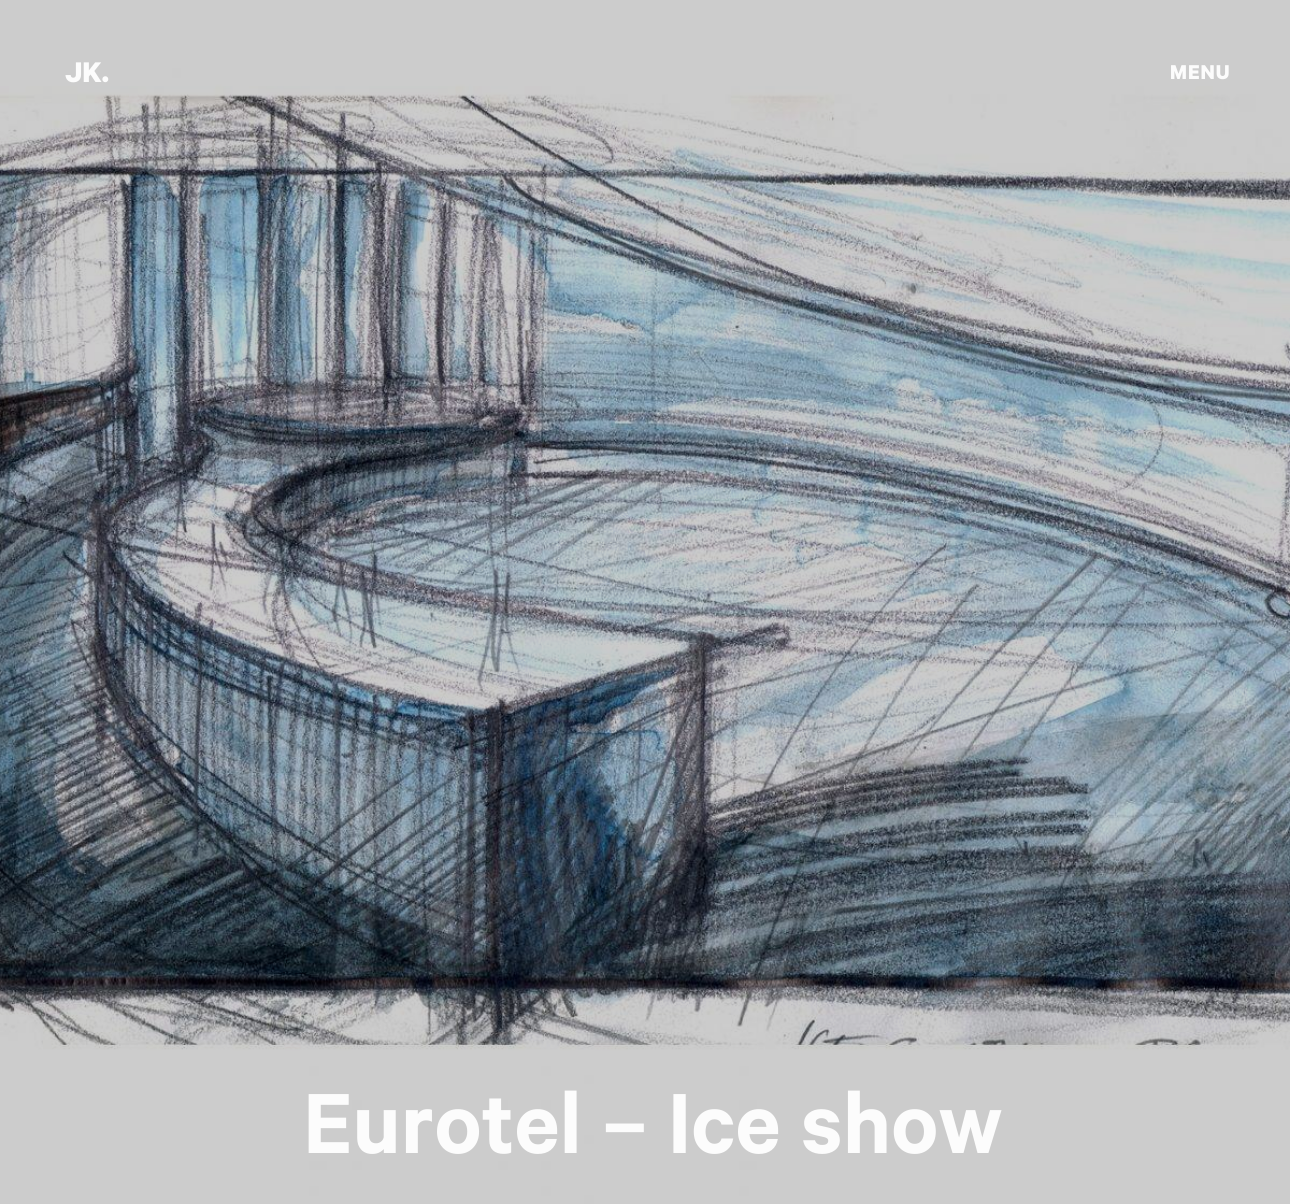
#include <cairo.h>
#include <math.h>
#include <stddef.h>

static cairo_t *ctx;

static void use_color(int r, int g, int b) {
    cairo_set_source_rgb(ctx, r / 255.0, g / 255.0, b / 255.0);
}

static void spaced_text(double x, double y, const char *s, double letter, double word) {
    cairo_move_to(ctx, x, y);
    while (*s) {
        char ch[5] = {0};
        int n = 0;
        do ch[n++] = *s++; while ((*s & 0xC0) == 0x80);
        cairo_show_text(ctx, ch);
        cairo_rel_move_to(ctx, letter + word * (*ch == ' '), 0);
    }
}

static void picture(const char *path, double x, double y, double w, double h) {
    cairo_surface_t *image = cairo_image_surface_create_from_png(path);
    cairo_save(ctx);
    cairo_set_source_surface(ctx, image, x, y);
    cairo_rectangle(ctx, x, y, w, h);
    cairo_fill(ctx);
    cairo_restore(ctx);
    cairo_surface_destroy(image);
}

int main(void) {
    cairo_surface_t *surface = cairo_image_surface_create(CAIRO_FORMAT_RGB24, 1290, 1204);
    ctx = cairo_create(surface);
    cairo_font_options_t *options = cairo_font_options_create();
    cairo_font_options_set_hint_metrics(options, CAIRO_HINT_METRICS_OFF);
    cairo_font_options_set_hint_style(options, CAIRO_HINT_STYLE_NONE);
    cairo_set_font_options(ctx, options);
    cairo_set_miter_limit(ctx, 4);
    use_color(255, 255, 255);
    cairo_paint(ctx);
    picture("img1.png", 0, 0, 1290, 1204);
    cairo_select_font_face(ctx, "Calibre", CAIRO_FONT_SLANT_NORMAL, CAIRO_FONT_WEIGHT_BOLD);
    cairo_set_font_size(ctx, 32);
    use_color(252, 252, 252);
    cairo_move_to(ctx, 65, 82);
    cairo_show_text(ctx, "JK.");
    cairo_set_font_size(ctx, 22.5);
    spaced_text(1170, 79, "MENU", 1, 0);
    cairo_select_font_face(ctx, "Calibre SemiBold", CAIRO_FONT_SLANT_NORMAL, CAIRO_FONT_WEIGHT_NORMAL);
    cairo_set_font_size(ctx, 96);
    cairo_move_to(ctx, 303, 1153);
    cairo_show_text(ctx, "Eurotel – Ice show");
    cairo_surface_write_to_png(surface, "result.png");
    cairo_font_options_destroy(options);
    cairo_destroy(ctx);
    cairo_surface_destroy(surface);
    return 0;
}
